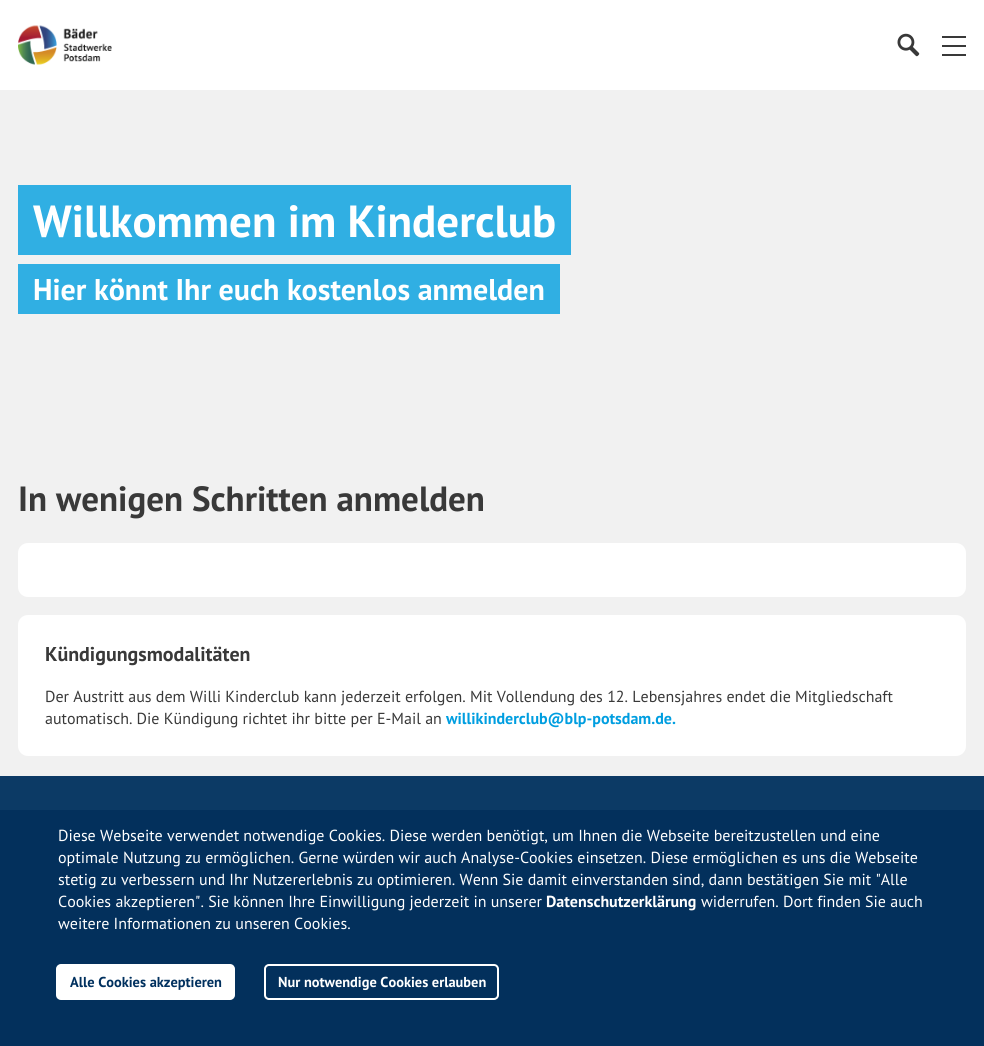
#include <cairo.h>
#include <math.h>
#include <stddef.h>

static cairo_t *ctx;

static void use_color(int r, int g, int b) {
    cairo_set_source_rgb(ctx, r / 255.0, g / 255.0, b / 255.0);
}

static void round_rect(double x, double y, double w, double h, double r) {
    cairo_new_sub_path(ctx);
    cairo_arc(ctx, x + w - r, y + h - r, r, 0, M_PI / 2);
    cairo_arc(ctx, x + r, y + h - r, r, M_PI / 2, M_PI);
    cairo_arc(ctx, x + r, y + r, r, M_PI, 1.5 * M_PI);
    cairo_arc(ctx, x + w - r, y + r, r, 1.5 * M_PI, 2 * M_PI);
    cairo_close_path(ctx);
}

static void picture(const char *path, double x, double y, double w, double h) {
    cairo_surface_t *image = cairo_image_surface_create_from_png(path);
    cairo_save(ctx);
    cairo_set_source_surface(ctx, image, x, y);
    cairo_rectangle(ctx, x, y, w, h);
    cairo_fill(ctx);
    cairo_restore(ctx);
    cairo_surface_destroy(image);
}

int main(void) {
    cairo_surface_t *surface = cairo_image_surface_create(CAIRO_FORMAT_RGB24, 984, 1046);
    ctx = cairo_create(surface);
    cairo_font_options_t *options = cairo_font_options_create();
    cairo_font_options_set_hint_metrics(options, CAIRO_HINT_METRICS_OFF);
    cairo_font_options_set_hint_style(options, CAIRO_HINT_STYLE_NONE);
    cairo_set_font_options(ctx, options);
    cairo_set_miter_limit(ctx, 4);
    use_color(241, 241, 241);
    cairo_paint(ctx);
    use_color(255, 255, 255);
    cairo_rectangle(ctx, 0, 0, 984, 90);
    cairo_fill(ctx);
    picture("img1.png", 18, 25, 94, 40);
    picture("img2.png", 897, 33, 23, 24);
    use_color(57, 57, 57);
    cairo_rectangle(ctx, 942, 36, 24, 2);
    cairo_fill(ctx);
    cairo_rectangle(ctx, 942, 45, 24, 2);
    cairo_fill(ctx);
    cairo_rectangle(ctx, 942, 54, 24, 2);
    cairo_fill(ctx);
    use_color(12, 58, 101);
    cairo_rectangle(ctx, 0, 776, 984, 34);
    cairo_fill(ctx);
    use_color(48, 175, 227);
    cairo_rectangle(ctx, 18, 185, 553, 70);
    cairo_fill(ctx);
    cairo_select_font_face(ctx, "PT Sans", CAIRO_FONT_SLANT_NORMAL, CAIRO_FONT_WEIGHT_BOLD);
    cairo_set_font_size(ctx, 45);
    use_color(255, 255, 255);
    cairo_move_to(ctx, 33, 237);
    cairo_show_text(ctx, "Willkommen im Kinderclub");
    use_color(48, 175, 227);
    cairo_rectangle(ctx, 18, 264, 542, 50);
    cairo_fill(ctx);
    cairo_set_font_size(ctx, 30);
    use_color(255, 255, 255);
    cairo_move_to(ctx, 33, 300);
    cairo_show_text(ctx, "Hier könnt Ihr euch kostenlos anmelden");
    cairo_set_font_size(ctx, 35);
    use_color(57, 57, 57);
    cairo_move_to(ctx, 18, 511);
    cairo_show_text(ctx, "In wenigen Schritten anmelden");
    use_color(255, 255, 255);
    round_rect(18, 543, 948, 54, 10);
    cairo_fill(ctx);
    round_rect(18, 615, 948, 141, 10);
    cairo_fill(ctx);
    cairo_set_font_size(ctx, 20);
    use_color(57, 57, 57);
    cairo_move_to(ctx, 45, 661);
    cairo_show_text(ctx, "Kündigungsmodalitäten");
    cairo_select_font_face(ctx, "PT Sans", CAIRO_FONT_SLANT_NORMAL, CAIRO_FONT_WEIGHT_NORMAL);
    cairo_set_font_size(ctx, 16);
    cairo_move_to(ctx, 45, 702);
    cairo_show_text(ctx, "Der Austritt aus dem Willi Kinderclub kann jederzeit erfolgen. Mit Vollendung des 12. Lebensjahres endet die Mitgliedschaft");
    cairo_move_to(ctx, 45, 724);
    cairo_show_text(ctx, "automatisch. Die Kündigung richtet ihr bitte per E-Mail an");
    cairo_select_font_face(ctx, "PT Sans", CAIRO_FONT_SLANT_NORMAL, CAIRO_FONT_WEIGHT_BOLD);
    use_color(0, 158, 224);
    cairo_move_to(ctx, 446, 724);
    cairo_show_text(ctx, "willikinderclub@blp-potsdam.de.");
    use_color(3, 48, 92);
    cairo_rectangle(ctx, 0, 810, 984, 236);
    cairo_fill(ctx);
    cairo_select_font_face(ctx, "PT Sans", CAIRO_FONT_SLANT_NORMAL, CAIRO_FONT_WEIGHT_NORMAL);
    use_color(255, 255, 255);
    cairo_move_to(ctx, 58, 841);
    cairo_show_text(ctx, "Diese Webseite verwendet notwendige Cookies. Diese werden benötigt, um Ihnen die Webseite bereitzustellen und eine");
    cairo_move_to(ctx, 58, 863);
    cairo_show_text(ctx, "optimale Nutzung zu ermöglichen. Gerne würden wir auch Analyse-Cookies einsetzen. Diese ermöglichen es uns die Webseite");
    cairo_move_to(ctx, 58, 885);
    cairo_show_text(ctx, "stetig zu verbessern und Ihr Nutzererlebnis zu optimieren. Wenn Sie damit einverstanden sind, dann bestätigen Sie mit \"Alle");
    cairo_move_to(ctx, 58, 907);
    cairo_show_text(ctx, "Cookies akzeptieren\". Sie können Ihre Einwilligung jederzeit in unserer");
    cairo_select_font_face(ctx, "PT Sans", CAIRO_FONT_SLANT_NORMAL, CAIRO_FONT_WEIGHT_BOLD);
    cairo_move_to(ctx, 546, 907);
    cairo_show_text(ctx, "Datenschutzerklärung");
    cairo_select_font_face(ctx, "PT Sans", CAIRO_FONT_SLANT_NORMAL, CAIRO_FONT_WEIGHT_NORMAL);
    cairo_move_to(ctx, 701, 907);
    cairo_show_text(ctx, "widerrufen. Dort finden Sie auch");
    cairo_move_to(ctx, 58, 929);
    cairo_show_text(ctx, "weitere Informationen zu unseren Cookies.");
    round_rect(57, 965, 177, 34, 4);
    cairo_fill_preserve(ctx);
    cairo_stroke(ctx);
    cairo_select_font_face(ctx, "PT Sans", CAIRO_FONT_SLANT_NORMAL, CAIRO_FONT_WEIGHT_BOLD);
    cairo_set_font_size(ctx, 14.4);
    use_color(0, 48, 94);
    cairo_move_to(ctx, 70, 987);
    cairo_show_text(ctx, "Alle Cookies akzeptieren");
    round_rect(265, 965, 233, 34, 4);
    use_color(255, 255, 255);
    cairo_stroke(ctx);
    cairo_move_to(ctx, 278, 987);
    cairo_show_text(ctx, "Nur notwendige Cookies erlauben");
    cairo_surface_write_to_png(surface, "result.png");
    cairo_font_options_destroy(options);
    cairo_destroy(ctx);
    cairo_surface_destroy(surface);
    return 0;
}
